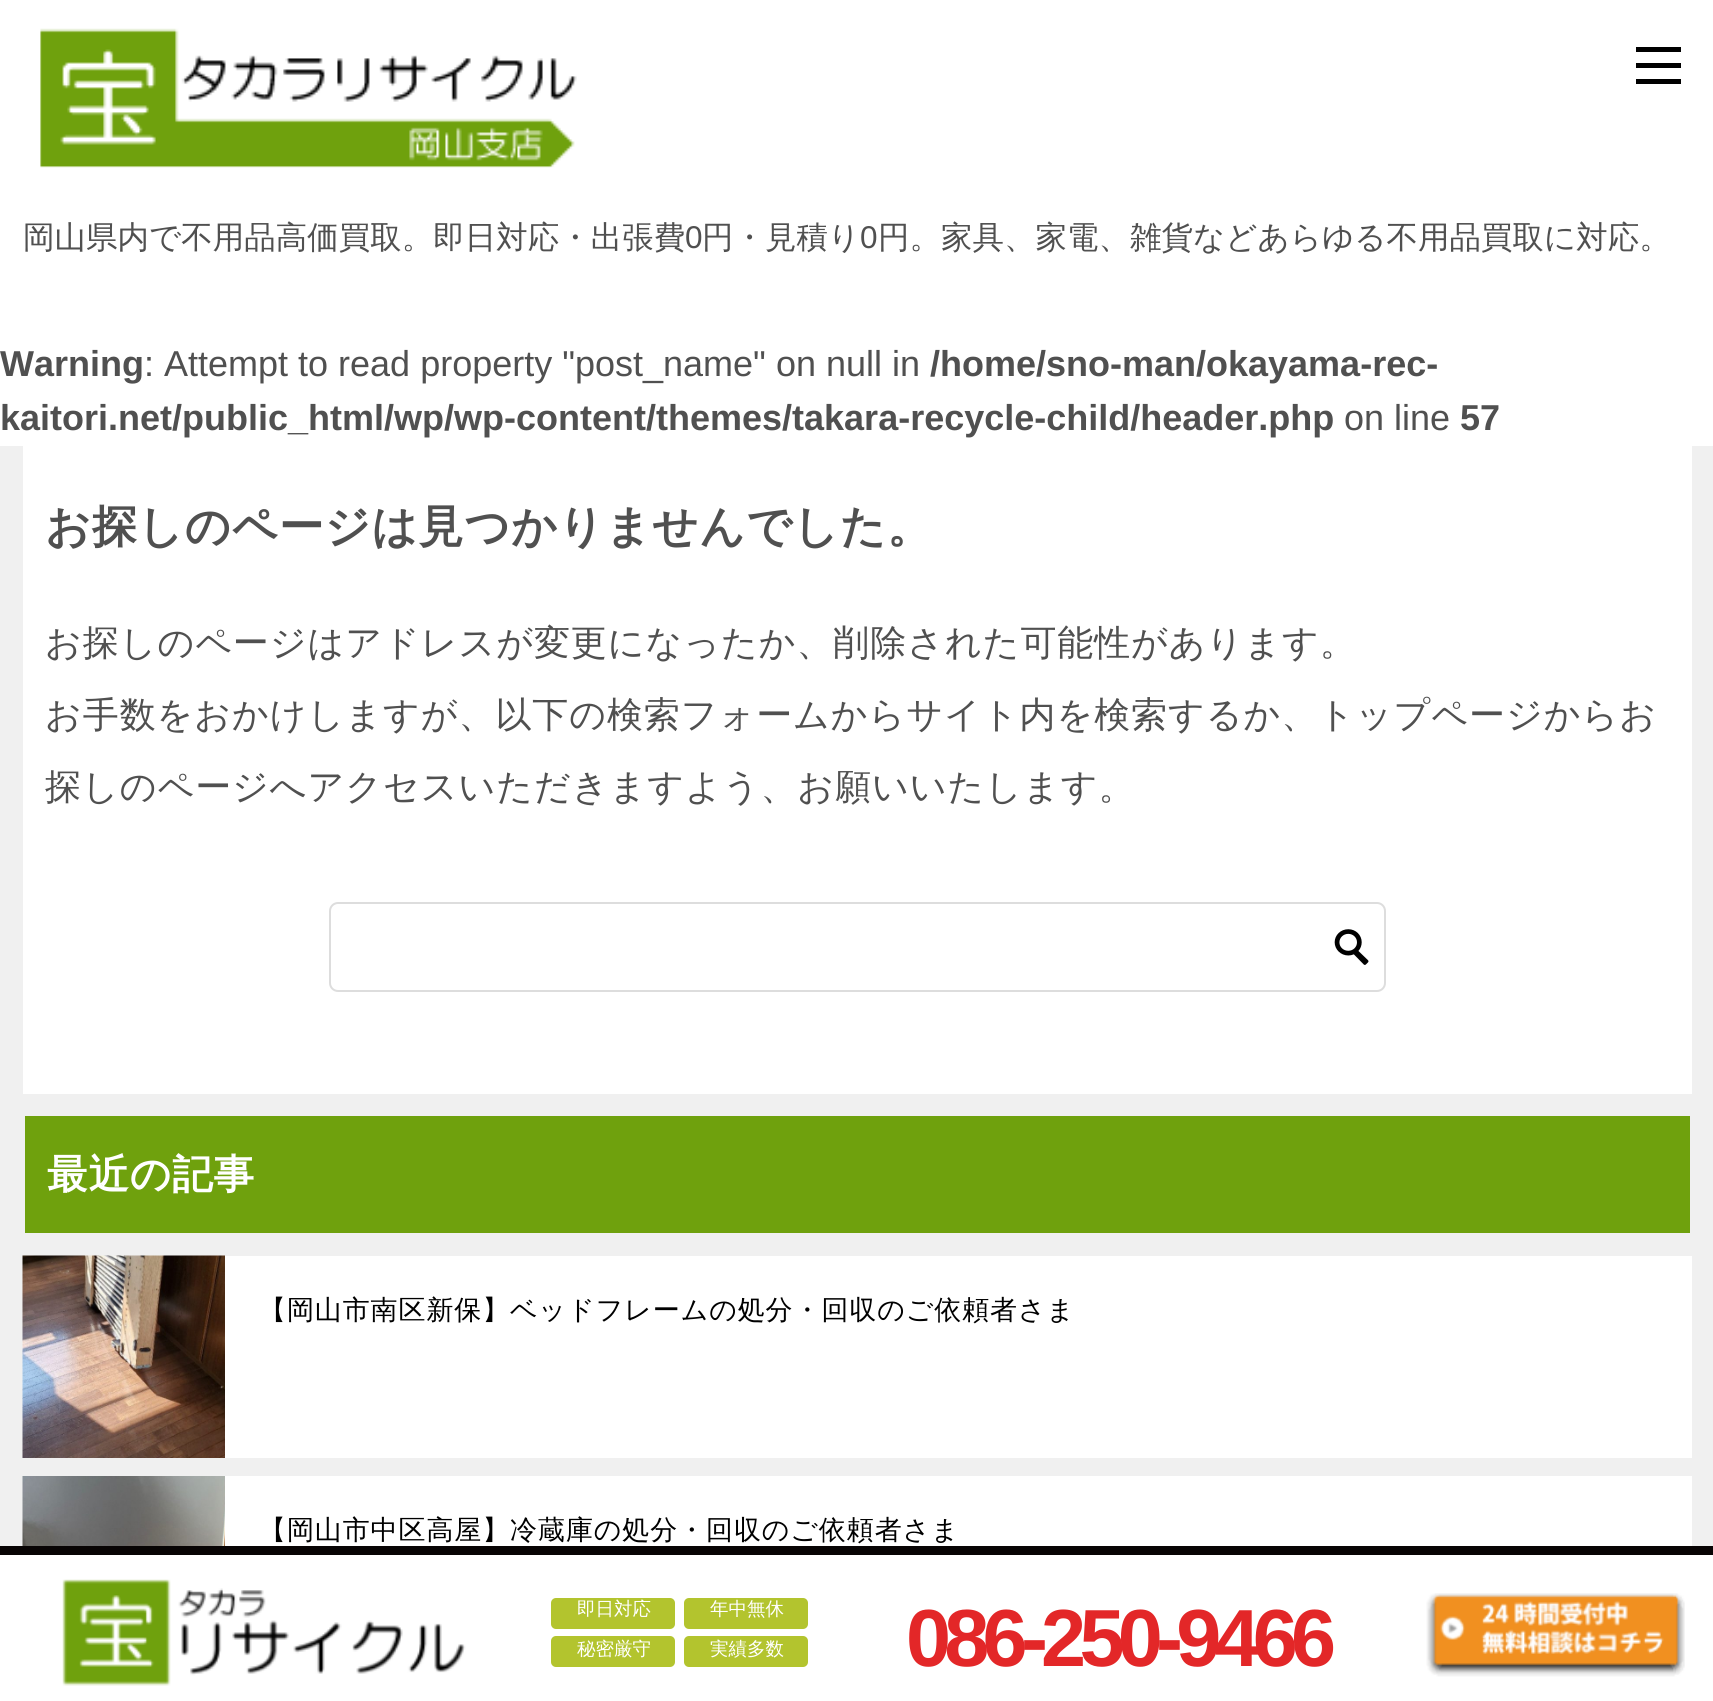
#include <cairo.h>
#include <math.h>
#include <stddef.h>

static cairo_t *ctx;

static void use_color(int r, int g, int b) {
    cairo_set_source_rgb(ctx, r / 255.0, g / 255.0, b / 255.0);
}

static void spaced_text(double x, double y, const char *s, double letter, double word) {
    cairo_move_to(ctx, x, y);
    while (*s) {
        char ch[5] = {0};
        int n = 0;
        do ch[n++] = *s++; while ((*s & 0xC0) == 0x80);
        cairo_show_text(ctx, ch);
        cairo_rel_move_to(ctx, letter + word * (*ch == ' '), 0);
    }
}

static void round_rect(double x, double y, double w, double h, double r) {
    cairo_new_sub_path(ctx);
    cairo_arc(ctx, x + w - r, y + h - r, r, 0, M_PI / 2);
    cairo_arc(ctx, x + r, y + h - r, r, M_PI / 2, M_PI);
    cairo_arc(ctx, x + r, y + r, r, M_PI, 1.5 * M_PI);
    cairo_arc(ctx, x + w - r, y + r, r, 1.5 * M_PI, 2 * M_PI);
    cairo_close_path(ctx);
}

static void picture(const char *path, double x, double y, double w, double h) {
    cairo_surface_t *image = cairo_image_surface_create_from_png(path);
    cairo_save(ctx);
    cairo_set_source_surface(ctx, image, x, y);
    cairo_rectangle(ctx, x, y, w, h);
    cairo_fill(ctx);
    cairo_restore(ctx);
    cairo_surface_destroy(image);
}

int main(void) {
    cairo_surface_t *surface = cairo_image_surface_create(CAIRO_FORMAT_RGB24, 1713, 1701);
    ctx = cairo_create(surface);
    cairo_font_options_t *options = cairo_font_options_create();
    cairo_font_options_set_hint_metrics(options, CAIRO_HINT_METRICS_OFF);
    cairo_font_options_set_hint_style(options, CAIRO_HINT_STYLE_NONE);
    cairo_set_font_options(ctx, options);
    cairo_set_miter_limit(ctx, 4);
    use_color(240, 240, 240);
    cairo_paint(ctx);
    use_color(255, 255, 255);
    cairo_rectangle(ctx, 0, 0, 1713, 446);
    cairo_fill(ctx);
    use_color(0, 0, 0);
    cairo_rectangle(ctx, 1636, 63, 45, 5);
    cairo_fill(ctx);
    cairo_rectangle(ctx, 1636, 47, 45, 5);
    cairo_fill(ctx);
    cairo_rectangle(ctx, 1636, 79, 45, 5);
    cairo_fill(ctx);
    picture("img1.png", 40, 28, 537, 140);
    cairo_select_font_face(ctx, "WenQuanYi Zen Hei Medium", CAIRO_FONT_SLANT_NORMAL, CAIRO_FONT_WEIGHT_NORMAL);
    cairo_set_font_size(ctx, 31.5);
    use_color(80, 80, 80);
    cairo_move_to(ctx, 23, 248);
    cairo_show_text(ctx, "岡山県内で不用品高価買取。即日対応・出張費");
    cairo_select_font_face(ctx, "Liberation Sans", CAIRO_FONT_SLANT_NORMAL, CAIRO_FONT_WEIGHT_NORMAL);
    cairo_move_to(ctx, 685, 248);
    cairo_show_text(ctx, "0");
    cairo_select_font_face(ctx, "WenQuanYi Zen Hei Medium", CAIRO_FONT_SLANT_NORMAL, CAIRO_FONT_WEIGHT_NORMAL);
    cairo_move_to(ctx, 702, 248);
    cairo_show_text(ctx, "円・見積り");
    cairo_select_font_face(ctx, "Liberation Sans", CAIRO_FONT_SLANT_NORMAL, CAIRO_FONT_WEIGHT_NORMAL);
    cairo_move_to(ctx, 860, 248);
    cairo_show_text(ctx, "0");
    cairo_select_font_face(ctx, "WenQuanYi Zen Hei Medium", CAIRO_FONT_SLANT_NORMAL, CAIRO_FONT_WEIGHT_NORMAL);
    cairo_move_to(ctx, 878, 248);
    cairo_show_text(ctx, "円。家具、家電、雑貨などあらゆる不用品買取に対応。");
    cairo_select_font_face(ctx, "Liberation Sans", CAIRO_FONT_SLANT_NORMAL, CAIRO_FONT_WEIGHT_BOLD);
    cairo_set_font_size(ctx, 36);
    cairo_move_to(ctx, 0, 376);
    cairo_show_text(ctx, "Warning");
    cairo_select_font_face(ctx, "Liberation Sans", CAIRO_FONT_SLANT_NORMAL, CAIRO_FONT_WEIGHT_NORMAL);
    cairo_move_to(ctx, 144, 376);
    cairo_show_text(ctx, ": Attempt to read property \"post_name\" on null in");
    cairo_select_font_face(ctx, "Liberation Sans", CAIRO_FONT_SLANT_NORMAL, CAIRO_FONT_WEIGHT_BOLD);
    cairo_move_to(ctx, 930, 376);
    cairo_show_text(ctx, "/home/sno-man/okayama-rec-");
    cairo_move_to(ctx, 0, 430);
    cairo_show_text(ctx, "kaitori.net/public_html/wp/wp-content/themes/takara-recycle-child/header.php");
    cairo_select_font_face(ctx, "Liberation Sans", CAIRO_FONT_SLANT_NORMAL, CAIRO_FONT_WEIGHT_NORMAL);
    cairo_move_to(ctx, 1344, 430);
    cairo_show_text(ctx, "on line");
    cairo_select_font_face(ctx, "Liberation Sans", CAIRO_FONT_SLANT_NORMAL, CAIRO_FONT_WEIGHT_BOLD);
    cairo_move_to(ctx, 1460, 430);
    cairo_show_text(ctx, "57");
    use_color(255, 255, 255);
    cairo_rectangle(ctx, 23, 446, 1669, 648);
    cairo_fill(ctx);
    cairo_select_font_face(ctx, "WenQuanYi Zen Hei", CAIRO_FONT_SLANT_NORMAL, CAIRO_FONT_WEIGHT_BOLD);
    cairo_set_font_size(ctx, 45);
    use_color(80, 80, 80);
    spaced_text(45, 542, "お探しのページは見つかりませんでした。", 0.9, 0);
    cairo_select_font_face(ctx, "WenQuanYi Zen Hei Medium", CAIRO_FONT_SLANT_NORMAL, CAIRO_FONT_WEIGHT_NORMAL);
    cairo_set_font_size(ctx, 36);
    spaced_text(45, 655, "お探しのページはアドレスが変更になったか、削除された可能性があります。", 0.9, 0);
    spaced_text(45, 727, "お手数をおかけしますが、以下の検索フォームからサイト内を検索するか、トップページからお", 0.9, 0);
    spaced_text(45, 799, "探しのページへアクセスいただきますよう、お願いいたします。", 0.9, 0);
    round_rect(330, 903, 1055, 88, 8);
    use_color(221, 221, 221);
    cairo_stroke(ctx);
    picture("img2.png", 1334, 929, 35, 36);
    use_color(111, 161, 13);
    cairo_rectangle(ctx, 25, 1116, 1665, 117);
    cairo_fill(ctx);
    cairo_select_font_face(ctx, "WenQuanYi Zen Hei", CAIRO_FONT_SLANT_NORMAL, CAIRO_FONT_WEIGHT_BOLD);
    cairo_set_font_size(ctx, 40.5);
    use_color(255, 255, 255);
    spaced_text(47, 1188, "最近の記事", 0.9, 0);
    cairo_rectangle(ctx, 225, 1256, 1467, 202);
    cairo_fill(ctx);
    picture("img3.png", 22, 1255, 203, 203);
    cairo_select_font_face(ctx, "WenQuanYi Zen Hei Medium", CAIRO_FONT_SLANT_NORMAL, CAIRO_FONT_WEIGHT_NORMAL);
    cairo_set_font_size(ctx, 27);
    use_color(0, 0, 0);
    spaced_text(259, 1319, "【岡山市南区新保】ベッドフレームの処分・回収のご依頼者さま", 0.9, 0);
    use_color(255, 255, 255);
    cairo_rectangle(ctx, 225, 1476, 1467, 70);
    cairo_fill(ctx);
    picture("img4.png", 22, 1476, 203, 70);
    use_color(0, 0, 0);
    spaced_text(259, 1539, "【岡山市中区高屋】冷蔵庫の処分・回収のご依頼者さま", 0.9, 0);
    use_color(255, 255, 255);
    cairo_rectangle(ctx, 0, 1555, 1713, 146);
    cairo_fill(ctx);
    use_color(8, 4, 4);
    cairo_rectangle(ctx, 0, 1546, 1713, 9);
    cairo_fill(ctx);
    picture("img5.png", 62, 1579, 404, 107);
    use_color(179, 196, 46);
    round_rect(551, 1598, 124, 31, 5);
    cairo_fill(ctx);
    cairo_set_font_size(ctx, 18.5);
    use_color(255, 255, 255);
    cairo_move_to(ctx, 577, 1615);
    cairo_show_text(ctx, "即日対応");
    use_color(179, 196, 46);
    round_rect(684, 1598, 124, 31, 5);
    cairo_fill(ctx);
    use_color(255, 255, 255);
    cairo_move_to(ctx, 710, 1615);
    cairo_show_text(ctx, "年中無休");
    use_color(179, 196, 46);
    round_rect(551, 1636, 124, 31, 5);
    cairo_fill(ctx);
    use_color(255, 255, 255);
    cairo_move_to(ctx, 577, 1655);
    cairo_show_text(ctx, "秘密厳守");
    use_color(179, 196, 46);
    round_rect(684, 1636, 124, 31, 5);
    cairo_fill(ctx);
    use_color(255, 255, 255);
    cairo_move_to(ctx, 710, 1655);
    cairo_show_text(ctx, "実績多数");
    cairo_select_font_face(ctx, "Liberation Sans", CAIRO_FONT_SLANT_NORMAL, CAIRO_FONT_WEIGHT_BOLD);
    cairo_set_font_size(ctx, 81);
    use_color(227, 39, 40);
    spaced_text(906, 1666, "086-250-9466", -6.75, 0);
    picture("img6.png", 1426, 1593, 259, 84);
    cairo_surface_write_to_png(surface, "result.png");
    cairo_font_options_destroy(options);
    cairo_destroy(ctx);
    cairo_surface_destroy(surface);
    return 0;
}
